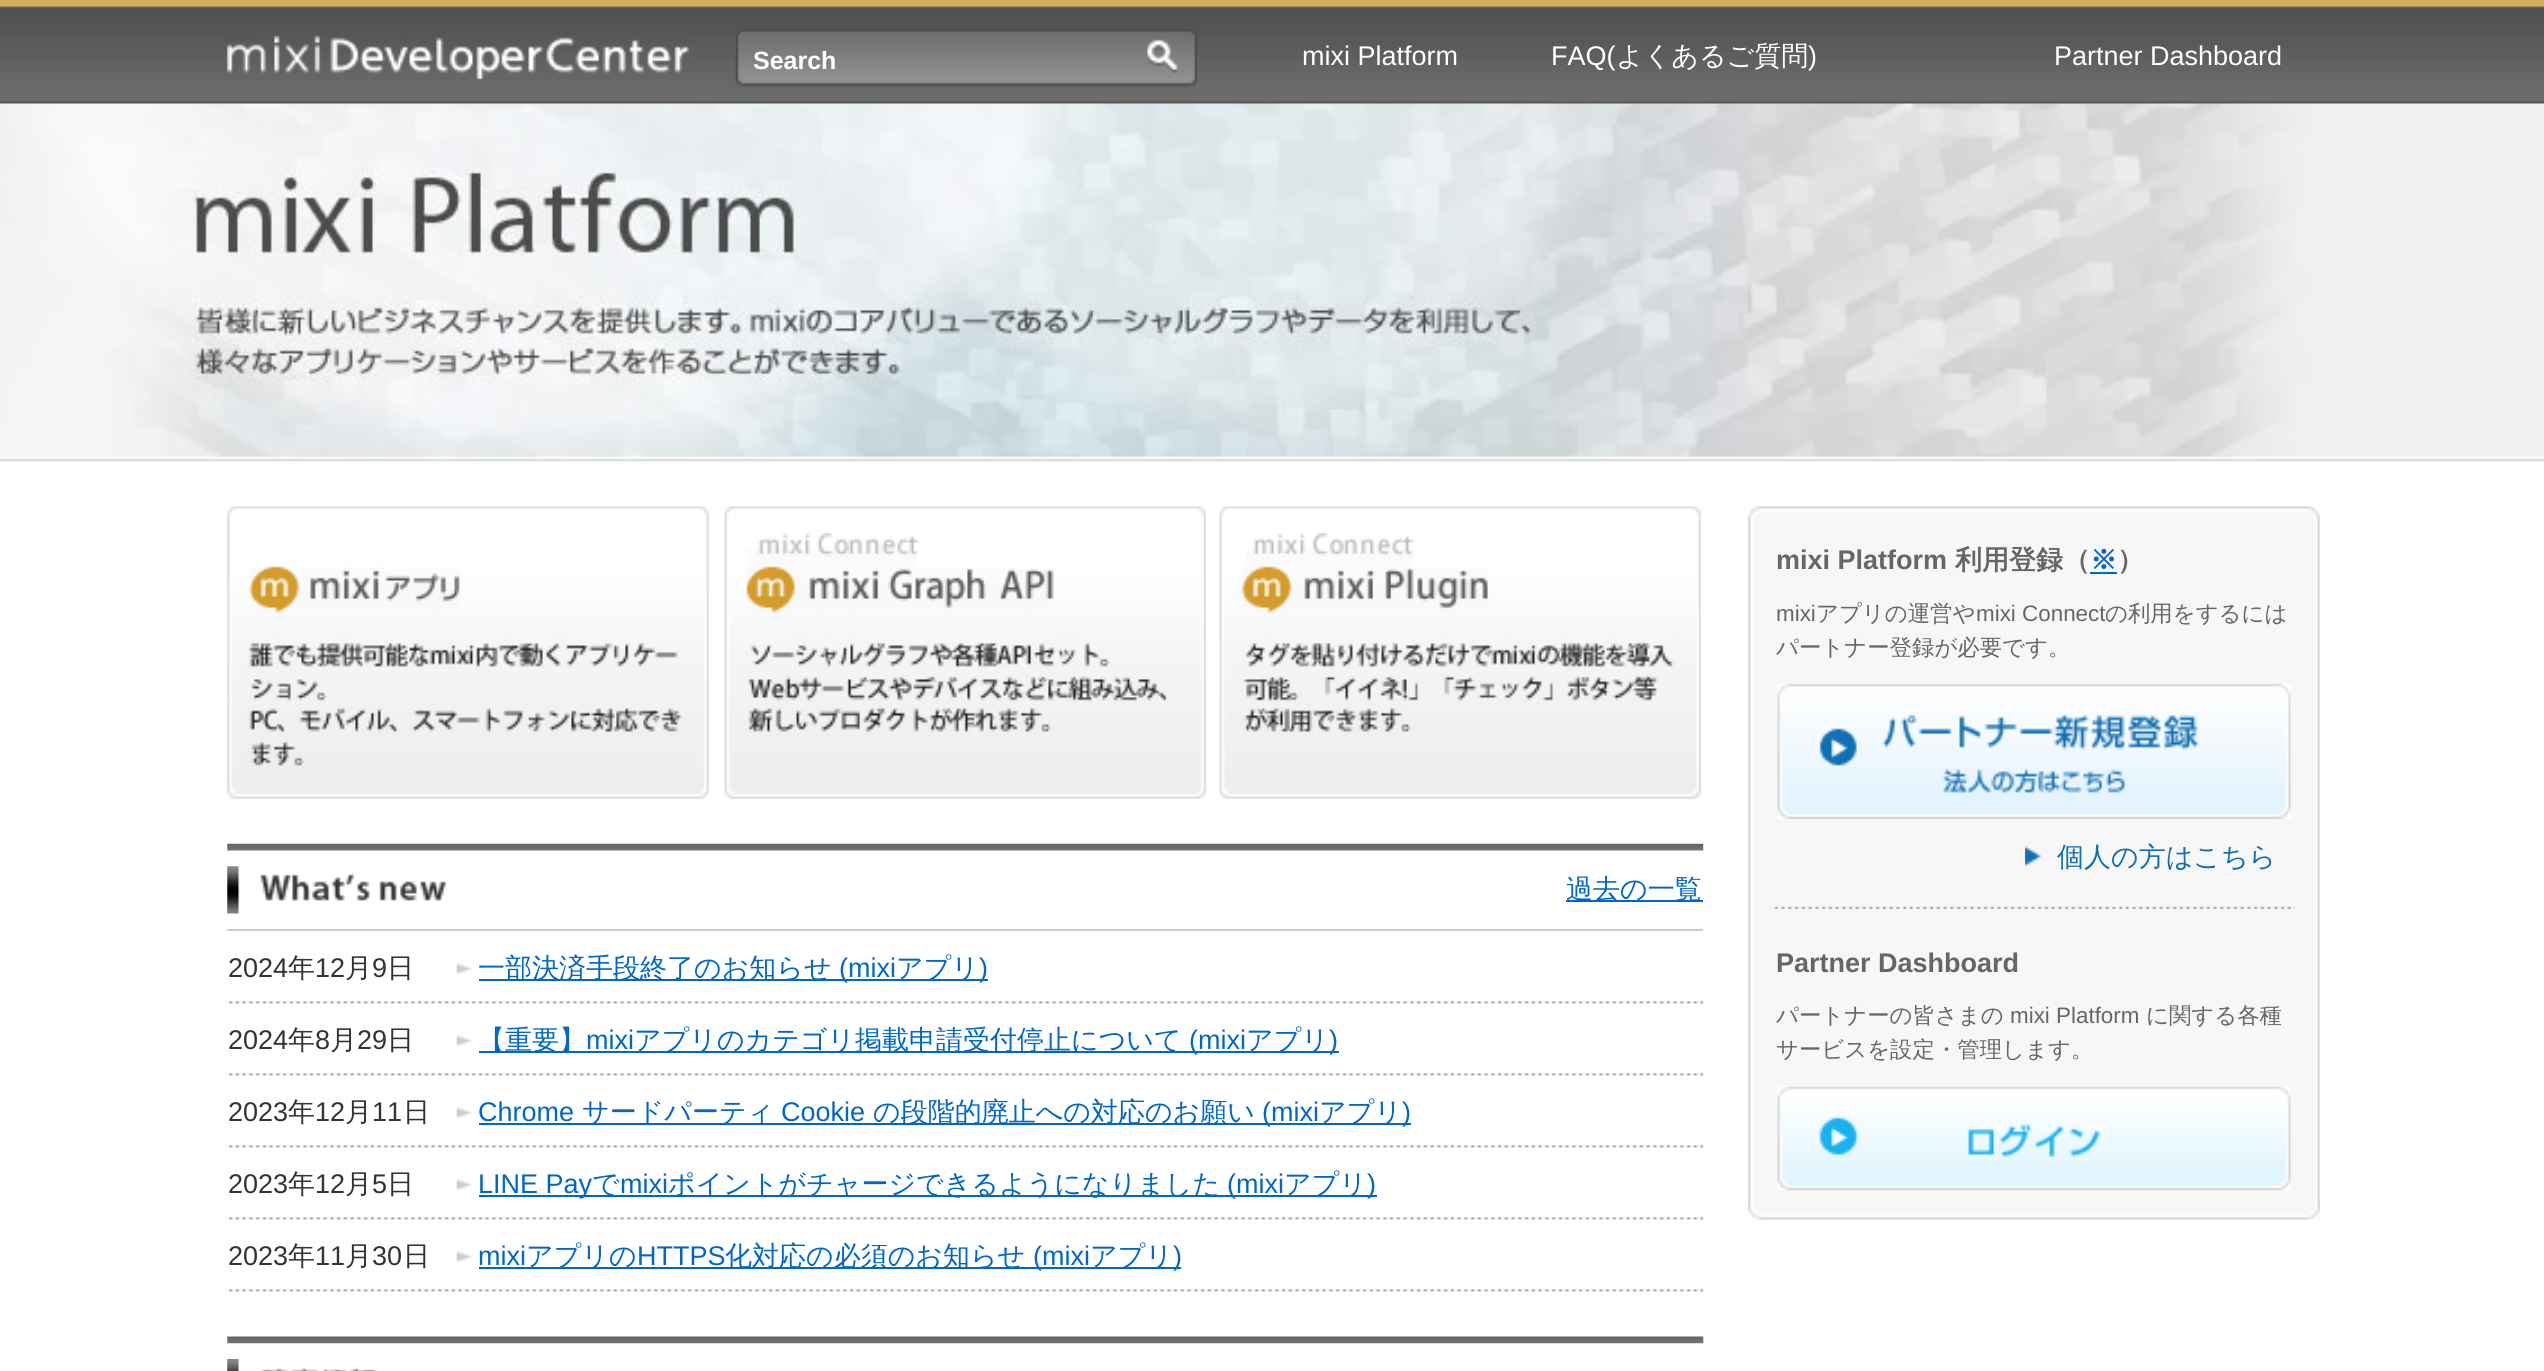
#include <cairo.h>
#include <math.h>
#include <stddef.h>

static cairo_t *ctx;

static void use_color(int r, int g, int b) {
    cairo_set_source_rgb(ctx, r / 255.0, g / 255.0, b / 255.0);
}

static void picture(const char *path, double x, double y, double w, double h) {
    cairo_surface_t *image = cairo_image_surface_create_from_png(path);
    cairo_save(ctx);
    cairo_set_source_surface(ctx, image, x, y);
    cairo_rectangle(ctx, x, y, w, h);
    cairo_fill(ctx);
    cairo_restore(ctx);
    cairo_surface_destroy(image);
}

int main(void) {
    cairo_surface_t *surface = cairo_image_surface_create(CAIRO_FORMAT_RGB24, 2544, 1371);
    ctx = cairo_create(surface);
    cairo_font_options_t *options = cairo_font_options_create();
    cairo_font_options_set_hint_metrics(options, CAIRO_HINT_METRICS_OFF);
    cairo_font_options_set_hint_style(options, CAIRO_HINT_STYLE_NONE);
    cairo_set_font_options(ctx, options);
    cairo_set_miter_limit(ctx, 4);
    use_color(255, 255, 255);
    cairo_paint(ctx);
    picture("img4.png", 0, 103, 2544, 359);
    picture("img1.png", 0, 0, 2544, 104);
    picture("img2.png", 227, 35, 462, 45);
    picture("img3.png", 735, 29, 462, 59);
    cairo_select_font_face(ctx, "Liberation Sans", CAIRO_FONT_SLANT_NORMAL, CAIRO_FONT_WEIGHT_BOLD);
    cairo_set_font_size(ctx, 25);
    use_color(255, 255, 255);
    cairo_move_to(ctx, 753, 69);
    cairo_show_text(ctx, "Search");
    cairo_select_font_face(ctx, "Liberation Sans", CAIRO_FONT_SLANT_NORMAL, CAIRO_FONT_WEIGHT_NORMAL);
    cairo_set_font_size(ctx, 27);
    cairo_move_to(ctx, 1302, 65);
    cairo_show_text(ctx, "mixi Platform");
    cairo_move_to(ctx, 1551, 65);
    cairo_show_text(ctx, "FAQ(");
    cairo_select_font_face(ctx, "WenQuanYi Zen Hei Medium", CAIRO_FONT_SLANT_NORMAL, CAIRO_FONT_WEIGHT_NORMAL);
    cairo_move_to(ctx, 1616, 65);
    cairo_show_text(ctx, "よくあるご質問");
    cairo_select_font_face(ctx, "Liberation Sans", CAIRO_FONT_SLANT_NORMAL, CAIRO_FONT_WEIGHT_NORMAL);
    cairo_move_to(ctx, 1808, 65);
    cairo_show_text(ctx, ")");
    cairo_move_to(ctx, 2054, 65);
    cairo_show_text(ctx, "Partner Dashboard");
    picture("img5.png", 227, 506, 482, 293);
    picture("img6.png", 724, 506, 482, 293);
    picture("img7.png", 1219, 506, 482, 293);
    picture("img8.png", 227, 843, 1477, 8);
    use_color(204, 204, 204);
    cairo_rectangle(ctx, 227, 929, 1476, 2);
    cairo_fill(ctx);
    picture("img9.png", 227, 866, 220, 48);
    use_color(0, 102, 204);
    cairo_rectangle(ctx, 1566, 900, 137, 2);
    cairo_fill(ctx);
    cairo_select_font_face(ctx, "WenQuanYi Zen Hei Medium", CAIRO_FONT_SLANT_NORMAL, CAIRO_FONT_WEIGHT_NORMAL);
    cairo_move_to(ctx, 1566, 898);
    cairo_show_text(ctx, "過去の一覧");
    picture("img10.png", 227, 1001, 1477, 3);
    cairo_select_font_face(ctx, "Liberation Sans", CAIRO_FONT_SLANT_NORMAL, CAIRO_FONT_WEIGHT_NORMAL);
    use_color(51, 51, 51);
    cairo_move_to(ctx, 228, 977);
    cairo_show_text(ctx, "2024");
    cairo_select_font_face(ctx, "WenQuanYi Zen Hei Medium", CAIRO_FONT_SLANT_NORMAL, CAIRO_FONT_WEIGHT_NORMAL);
    cairo_move_to(ctx, 288, 977);
    cairo_show_text(ctx, "年");
    cairo_select_font_face(ctx, "Liberation Sans", CAIRO_FONT_SLANT_NORMAL, CAIRO_FONT_WEIGHT_NORMAL);
    cairo_move_to(ctx, 315, 977);
    cairo_show_text(ctx, "12");
    cairo_select_font_face(ctx, "WenQuanYi Zen Hei Medium", CAIRO_FONT_SLANT_NORMAL, CAIRO_FONT_WEIGHT_NORMAL);
    cairo_move_to(ctx, 345, 977);
    cairo_show_text(ctx, "月");
    cairo_select_font_face(ctx, "Liberation Sans", CAIRO_FONT_SLANT_NORMAL, CAIRO_FONT_WEIGHT_NORMAL);
    cairo_move_to(ctx, 372, 977);
    cairo_show_text(ctx, "9");
    cairo_select_font_face(ctx, "WenQuanYi Zen Hei Medium", CAIRO_FONT_SLANT_NORMAL, CAIRO_FONT_WEIGHT_NORMAL);
    cairo_move_to(ctx, 387, 977);
    cairo_show_text(ctx, "日");
    picture("img11.png", 456, 963, 17, 12);
    use_color(0, 102, 204);
    cairo_rectangle(ctx, 479, 979, 509, 2);
    cairo_fill(ctx);
    cairo_move_to(ctx, 478, 977);
    cairo_show_text(ctx, "一部決済手段終了のお知らせ");
    cairo_select_font_face(ctx, "Liberation Sans", CAIRO_FONT_SLANT_NORMAL, CAIRO_FONT_WEIGHT_NORMAL);
    cairo_move_to(ctx, 839, 977);
    cairo_show_text(ctx, "(mixi");
    cairo_select_font_face(ctx, "WenQuanYi Zen Hei Medium", CAIRO_FONT_SLANT_NORMAL, CAIRO_FONT_WEIGHT_NORMAL);
    cairo_move_to(ctx, 896, 977);
    cairo_show_text(ctx, "アプリ");
    cairo_select_font_face(ctx, "Liberation Sans", CAIRO_FONT_SLANT_NORMAL, CAIRO_FONT_WEIGHT_NORMAL);
    cairo_move_to(ctx, 979, 977);
    cairo_show_text(ctx, ")");
    picture("img10.png", 227, 1073, 1477, 3);
    use_color(51, 51, 51);
    cairo_move_to(ctx, 228, 1049);
    cairo_show_text(ctx, "2024");
    cairo_select_font_face(ctx, "WenQuanYi Zen Hei Medium", CAIRO_FONT_SLANT_NORMAL, CAIRO_FONT_WEIGHT_NORMAL);
    cairo_move_to(ctx, 288, 1049);
    cairo_show_text(ctx, "年");
    cairo_select_font_face(ctx, "Liberation Sans", CAIRO_FONT_SLANT_NORMAL, CAIRO_FONT_WEIGHT_NORMAL);
    cairo_move_to(ctx, 315, 1049);
    cairo_show_text(ctx, "8");
    cairo_select_font_face(ctx, "WenQuanYi Zen Hei Medium", CAIRO_FONT_SLANT_NORMAL, CAIRO_FONT_WEIGHT_NORMAL);
    cairo_move_to(ctx, 330, 1049);
    cairo_show_text(ctx, "月");
    cairo_select_font_face(ctx, "Liberation Sans", CAIRO_FONT_SLANT_NORMAL, CAIRO_FONT_WEIGHT_NORMAL);
    cairo_move_to(ctx, 357, 1049);
    cairo_show_text(ctx, "29");
    cairo_select_font_face(ctx, "WenQuanYi Zen Hei Medium", CAIRO_FONT_SLANT_NORMAL, CAIRO_FONT_WEIGHT_NORMAL);
    cairo_move_to(ctx, 387, 1049);
    cairo_show_text(ctx, "日");
    picture("img11.png", 456, 1035, 17, 12);
    use_color(0, 102, 204);
    cairo_rectangle(ctx, 479, 1051, 860, 2);
    cairo_fill(ctx);
    cairo_move_to(ctx, 478, 1049);
    cairo_show_text(ctx, "【重要】");
    cairo_select_font_face(ctx, "Liberation Sans", CAIRO_FONT_SLANT_NORMAL, CAIRO_FONT_WEIGHT_NORMAL);
    cairo_move_to(ctx, 586, 1049);
    cairo_show_text(ctx, "mixi");
    cairo_select_font_face(ctx, "WenQuanYi Zen Hei Medium", CAIRO_FONT_SLANT_NORMAL, CAIRO_FONT_WEIGHT_NORMAL);
    cairo_move_to(ctx, 634, 1049);
    cairo_show_text(ctx, "アプリのカテゴリ掲載申請受付停止について");
    cairo_select_font_face(ctx, "Liberation Sans", CAIRO_FONT_SLANT_NORMAL, CAIRO_FONT_WEIGHT_NORMAL);
    cairo_move_to(ctx, 1189, 1049);
    cairo_show_text(ctx, "(mixi");
    cairo_select_font_face(ctx, "WenQuanYi Zen Hei Medium", CAIRO_FONT_SLANT_NORMAL, CAIRO_FONT_WEIGHT_NORMAL);
    cairo_move_to(ctx, 1246, 1049);
    cairo_show_text(ctx, "アプリ");
    cairo_select_font_face(ctx, "Liberation Sans", CAIRO_FONT_SLANT_NORMAL, CAIRO_FONT_WEIGHT_NORMAL);
    cairo_move_to(ctx, 1329, 1049);
    cairo_show_text(ctx, ")");
    picture("img10.png", 227, 1145, 1477, 3);
    use_color(51, 51, 51);
    cairo_move_to(ctx, 228, 1121);
    cairo_show_text(ctx, "2023");
    cairo_select_font_face(ctx, "WenQuanYi Zen Hei Medium", CAIRO_FONT_SLANT_NORMAL, CAIRO_FONT_WEIGHT_NORMAL);
    cairo_move_to(ctx, 288, 1121);
    cairo_show_text(ctx, "年");
    cairo_select_font_face(ctx, "Liberation Sans", CAIRO_FONT_SLANT_NORMAL, CAIRO_FONT_WEIGHT_NORMAL);
    cairo_move_to(ctx, 315, 1121);
    cairo_show_text(ctx, "12");
    cairo_select_font_face(ctx, "WenQuanYi Zen Hei Medium", CAIRO_FONT_SLANT_NORMAL, CAIRO_FONT_WEIGHT_NORMAL);
    cairo_move_to(ctx, 345, 1121);
    cairo_show_text(ctx, "月");
    cairo_select_font_face(ctx, "Liberation Sans", CAIRO_FONT_SLANT_NORMAL, CAIRO_FONT_WEIGHT_NORMAL);
    cairo_move_to(ctx, 372, 1121);
    cairo_show_text(ctx, "11");
    cairo_select_font_face(ctx, "WenQuanYi Zen Hei Medium", CAIRO_FONT_SLANT_NORMAL, CAIRO_FONT_WEIGHT_NORMAL);
    cairo_move_to(ctx, 403, 1121);
    cairo_show_text(ctx, "日");
    picture("img11.png", 456, 1107, 17, 12);
    cairo_select_font_face(ctx, "Liberation Sans", CAIRO_FONT_SLANT_NORMAL, CAIRO_FONT_WEIGHT_NORMAL);
    use_color(0, 102, 204);
    cairo_move_to(ctx, 478, 1121);
    cairo_show_text(ctx, "Chrome");
    cairo_rectangle(ctx, 479, 1123, 932, 2);
    cairo_fill(ctx);
    cairo_select_font_face(ctx, "WenQuanYi Zen Hei Medium", CAIRO_FONT_SLANT_NORMAL, CAIRO_FONT_WEIGHT_NORMAL);
    cairo_move_to(ctx, 582, 1121);
    cairo_show_text(ctx, "サードパーティ");
    cairo_select_font_face(ctx, "Liberation Sans", CAIRO_FONT_SLANT_NORMAL, CAIRO_FONT_WEIGHT_NORMAL);
    cairo_move_to(ctx, 781, 1121);
    cairo_show_text(ctx, "Cookie");
    cairo_select_font_face(ctx, "WenQuanYi Zen Hei Medium", CAIRO_FONT_SLANT_NORMAL, CAIRO_FONT_WEIGHT_NORMAL);
    cairo_move_to(ctx, 873, 1121);
    cairo_show_text(ctx, "の段階的廃止への対応のお願い");
    cairo_select_font_face(ctx, "Liberation Sans", CAIRO_FONT_SLANT_NORMAL, CAIRO_FONT_WEIGHT_NORMAL);
    cairo_move_to(ctx, 1262, 1121);
    cairo_show_text(ctx, "(mixi");
    cairo_select_font_face(ctx, "WenQuanYi Zen Hei Medium", CAIRO_FONT_SLANT_NORMAL, CAIRO_FONT_WEIGHT_NORMAL);
    cairo_move_to(ctx, 1319, 1121);
    cairo_show_text(ctx, "アプリ");
    cairo_select_font_face(ctx, "Liberation Sans", CAIRO_FONT_SLANT_NORMAL, CAIRO_FONT_WEIGHT_NORMAL);
    cairo_move_to(ctx, 1402, 1121);
    cairo_show_text(ctx, ")");
    picture("img10.png", 227, 1217, 1477, 3);
    use_color(51, 51, 51);
    cairo_move_to(ctx, 228, 1193);
    cairo_show_text(ctx, "2023");
    cairo_select_font_face(ctx, "WenQuanYi Zen Hei Medium", CAIRO_FONT_SLANT_NORMAL, CAIRO_FONT_WEIGHT_NORMAL);
    cairo_move_to(ctx, 288, 1193);
    cairo_show_text(ctx, "年");
    cairo_select_font_face(ctx, "Liberation Sans", CAIRO_FONT_SLANT_NORMAL, CAIRO_FONT_WEIGHT_NORMAL);
    cairo_move_to(ctx, 315, 1193);
    cairo_show_text(ctx, "12");
    cairo_select_font_face(ctx, "WenQuanYi Zen Hei Medium", CAIRO_FONT_SLANT_NORMAL, CAIRO_FONT_WEIGHT_NORMAL);
    cairo_move_to(ctx, 345, 1193);
    cairo_show_text(ctx, "月");
    cairo_select_font_face(ctx, "Liberation Sans", CAIRO_FONT_SLANT_NORMAL, CAIRO_FONT_WEIGHT_NORMAL);
    cairo_move_to(ctx, 372, 1193);
    cairo_show_text(ctx, "5");
    cairo_select_font_face(ctx, "WenQuanYi Zen Hei Medium", CAIRO_FONT_SLANT_NORMAL, CAIRO_FONT_WEIGHT_NORMAL);
    cairo_move_to(ctx, 387, 1193);
    cairo_show_text(ctx, "日");
    picture("img11.png", 456, 1179, 17, 12);
    use_color(0, 102, 204);
    cairo_rectangle(ctx, 479, 1195, 898, 2);
    cairo_fill(ctx);
    cairo_select_font_face(ctx, "Liberation Sans", CAIRO_FONT_SLANT_NORMAL, CAIRO_FONT_WEIGHT_NORMAL);
    cairo_move_to(ctx, 478, 1193);
    cairo_show_text(ctx, "LINE Pay");
    cairo_select_font_face(ctx, "WenQuanYi Zen Hei Medium", CAIRO_FONT_SLANT_NORMAL, CAIRO_FONT_WEIGHT_NORMAL);
    cairo_move_to(ctx, 592, 1193);
    cairo_show_text(ctx, "で");
    cairo_select_font_face(ctx, "Liberation Sans", CAIRO_FONT_SLANT_NORMAL, CAIRO_FONT_WEIGHT_NORMAL);
    cairo_move_to(ctx, 620, 1193);
    cairo_show_text(ctx, "mixi");
    cairo_select_font_face(ctx, "WenQuanYi Zen Hei Medium", CAIRO_FONT_SLANT_NORMAL, CAIRO_FONT_WEIGHT_NORMAL);
    cairo_move_to(ctx, 668, 1193);
    cairo_show_text(ctx, "ポイントがチャージできるようになりました");
    cairo_select_font_face(ctx, "Liberation Sans", CAIRO_FONT_SLANT_NORMAL, CAIRO_FONT_WEIGHT_NORMAL);
    cairo_move_to(ctx, 1227, 1193);
    cairo_show_text(ctx, "(mixi");
    cairo_select_font_face(ctx, "WenQuanYi Zen Hei Medium", CAIRO_FONT_SLANT_NORMAL, CAIRO_FONT_WEIGHT_NORMAL);
    cairo_move_to(ctx, 1284, 1193);
    cairo_show_text(ctx, "アプリ");
    cairo_select_font_face(ctx, "Liberation Sans", CAIRO_FONT_SLANT_NORMAL, CAIRO_FONT_WEIGHT_NORMAL);
    cairo_move_to(ctx, 1367, 1193);
    cairo_show_text(ctx, ")");
    picture("img10.png", 227, 1289, 1477, 3);
    use_color(51, 51, 51);
    cairo_move_to(ctx, 228, 1265);
    cairo_show_text(ctx, "2023");
    cairo_select_font_face(ctx, "WenQuanYi Zen Hei Medium", CAIRO_FONT_SLANT_NORMAL, CAIRO_FONT_WEIGHT_NORMAL);
    cairo_move_to(ctx, 288, 1265);
    cairo_show_text(ctx, "年");
    cairo_select_font_face(ctx, "Liberation Sans", CAIRO_FONT_SLANT_NORMAL, CAIRO_FONT_WEIGHT_NORMAL);
    cairo_move_to(ctx, 315, 1265);
    cairo_show_text(ctx, "11");
    cairo_select_font_face(ctx, "WenQuanYi Zen Hei Medium", CAIRO_FONT_SLANT_NORMAL, CAIRO_FONT_WEIGHT_NORMAL);
    cairo_move_to(ctx, 345, 1265);
    cairo_show_text(ctx, "月");
    cairo_select_font_face(ctx, "Liberation Sans", CAIRO_FONT_SLANT_NORMAL, CAIRO_FONT_WEIGHT_NORMAL);
    cairo_move_to(ctx, 372, 1265);
    cairo_show_text(ctx, "30");
    cairo_select_font_face(ctx, "WenQuanYi Zen Hei Medium", CAIRO_FONT_SLANT_NORMAL, CAIRO_FONT_WEIGHT_NORMAL);
    cairo_move_to(ctx, 403, 1265);
    cairo_show_text(ctx, "日");
    picture("img11.png", 456, 1251, 17, 12);
    cairo_select_font_face(ctx, "Liberation Sans", CAIRO_FONT_SLANT_NORMAL, CAIRO_FONT_WEIGHT_NORMAL);
    use_color(0, 102, 204);
    cairo_move_to(ctx, 478, 1265);
    cairo_show_text(ctx, "mixi");
    cairo_rectangle(ctx, 479, 1267, 702, 2);
    cairo_fill(ctx);
    cairo_select_font_face(ctx, "WenQuanYi Zen Hei Medium", CAIRO_FONT_SLANT_NORMAL, CAIRO_FONT_WEIGHT_NORMAL);
    cairo_move_to(ctx, 526, 1265);
    cairo_show_text(ctx, "アプリの");
    cairo_select_font_face(ctx, "Liberation Sans", CAIRO_FONT_SLANT_NORMAL, CAIRO_FONT_WEIGHT_NORMAL);
    cairo_move_to(ctx, 637, 1265);
    cairo_show_text(ctx, "HTTPS");
    cairo_select_font_face(ctx, "WenQuanYi Zen Hei Medium", CAIRO_FONT_SLANT_NORMAL, CAIRO_FONT_WEIGHT_NORMAL);
    cairo_move_to(ctx, 725, 1265);
    cairo_show_text(ctx, "化対応の必須のお知らせ");
    cairo_select_font_face(ctx, "Liberation Sans", CAIRO_FONT_SLANT_NORMAL, CAIRO_FONT_WEIGHT_NORMAL);
    cairo_move_to(ctx, 1033, 1265);
    cairo_show_text(ctx, "(mixi");
    cairo_select_font_face(ctx, "WenQuanYi Zen Hei Medium", CAIRO_FONT_SLANT_NORMAL, CAIRO_FONT_WEIGHT_NORMAL);
    cairo_move_to(ctx, 1090, 1265);
    cairo_show_text(ctx, "アプリ");
    cairo_select_font_face(ctx, "Liberation Sans", CAIRO_FONT_SLANT_NORMAL, CAIRO_FONT_WEIGHT_NORMAL);
    cairo_move_to(ctx, 1173, 1265);
    cairo_show_text(ctx, ")");
    picture("img12.png", 227, 1336, 1477, 8);
    picture("img13.png", 227, 1359, 150, 12);
    picture("img14.png", 1748, 506, 572, 714);
    picture("img15.png", 1748, 1202, 572, 18);
    cairo_select_font_face(ctx, "Liberation Sans", CAIRO_FONT_SLANT_NORMAL, CAIRO_FONT_WEIGHT_BOLD);
    use_color(102, 102, 102);
    cairo_move_to(ctx, 1776, 569);
    cairo_show_text(ctx, "mixi Platform");
    cairo_select_font_face(ctx, "WenQuanYi Zen Hei", CAIRO_FONT_SLANT_NORMAL, CAIRO_FONT_WEIGHT_BOLD);
    cairo_move_to(ctx, 1955, 569);
    cairo_show_text(ctx, "利用登録（");
    use_color(0, 102, 204);
    cairo_move_to(ctx, 2090, 569);
    cairo_show_text(ctx, "※");
    cairo_rectangle(ctx, 2090, 572, 27, 2);
    cairo_fill(ctx);
    use_color(102, 102, 102);
    cairo_move_to(ctx, 2117, 569);
    cairo_show_text(ctx, "）");
    cairo_select_font_face(ctx, "Liberation Sans", CAIRO_FONT_SLANT_NORMAL, CAIRO_FONT_WEIGHT_NORMAL);
    cairo_set_font_size(ctx, 22.4);
    cairo_move_to(ctx, 1776, 621);
    cairo_show_text(ctx, "mixi");
    cairo_select_font_face(ctx, "WenQuanYi Zen Hei Medium", CAIRO_FONT_SLANT_NORMAL, CAIRO_FONT_WEIGHT_NORMAL);
    cairo_move_to(ctx, 1816, 621);
    cairo_show_text(ctx, "アプリの運営や");
    cairo_select_font_face(ctx, "Liberation Sans", CAIRO_FONT_SLANT_NORMAL, CAIRO_FONT_WEIGHT_NORMAL);
    cairo_move_to(ctx, 1976, 621);
    cairo_show_text(ctx, "mixi Connect");
    cairo_select_font_face(ctx, "WenQuanYi Zen Hei Medium", CAIRO_FONT_SLANT_NORMAL, CAIRO_FONT_WEIGHT_NORMAL);
    cairo_move_to(ctx, 2105, 621);
    cairo_show_text(ctx, "の利用をするには");
    cairo_move_to(ctx, 1776, 655);
    cairo_show_text(ctx, "パートナー登録が必要です。");
    picture("img16.png", 1777, 684, 514, 135);
    picture("img17.png", 2025, 846, 16, 21);
    cairo_set_font_size(ctx, 27);
    use_color(18, 110, 177);
    cairo_move_to(ctx, 2057, 866);
    cairo_show_text(ctx, "個人の方はこちら");
    picture("img18.png", 1773, 906, 522, 3);
    cairo_select_font_face(ctx, "Liberation Sans", CAIRO_FONT_SLANT_NORMAL, CAIRO_FONT_WEIGHT_BOLD);
    use_color(102, 102, 102);
    cairo_move_to(ctx, 1776, 972);
    cairo_show_text(ctx, "Partner Dashboard");
    cairo_select_font_face(ctx, "WenQuanYi Zen Hei Medium", CAIRO_FONT_SLANT_NORMAL, CAIRO_FONT_WEIGHT_NORMAL);
    cairo_set_font_size(ctx, 22.4);
    cairo_move_to(ctx, 1776, 1023);
    cairo_show_text(ctx, "パートナーの皆さまの");
    cairo_select_font_face(ctx, "Liberation Sans", CAIRO_FONT_SLANT_NORMAL, CAIRO_FONT_WEIGHT_NORMAL);
    cairo_move_to(ctx, 2010, 1023);
    cairo_show_text(ctx, "mixi Platform");
    cairo_select_font_face(ctx, "WenQuanYi Zen Hei Medium", CAIRO_FONT_SLANT_NORMAL, CAIRO_FONT_WEIGHT_NORMAL);
    cairo_move_to(ctx, 2146, 1023);
    cairo_show_text(ctx, "に関する各種");
    cairo_move_to(ctx, 1776, 1057);
    cairo_show_text(ctx, "サービスを設定・管理します。");
    picture("img19.png", 1777, 1086, 514, 105);
    cairo_surface_write_to_png(surface, "result.png");
    cairo_font_options_destroy(options);
    cairo_destroy(ctx);
    cairo_surface_destroy(surface);
    return 0;
}
